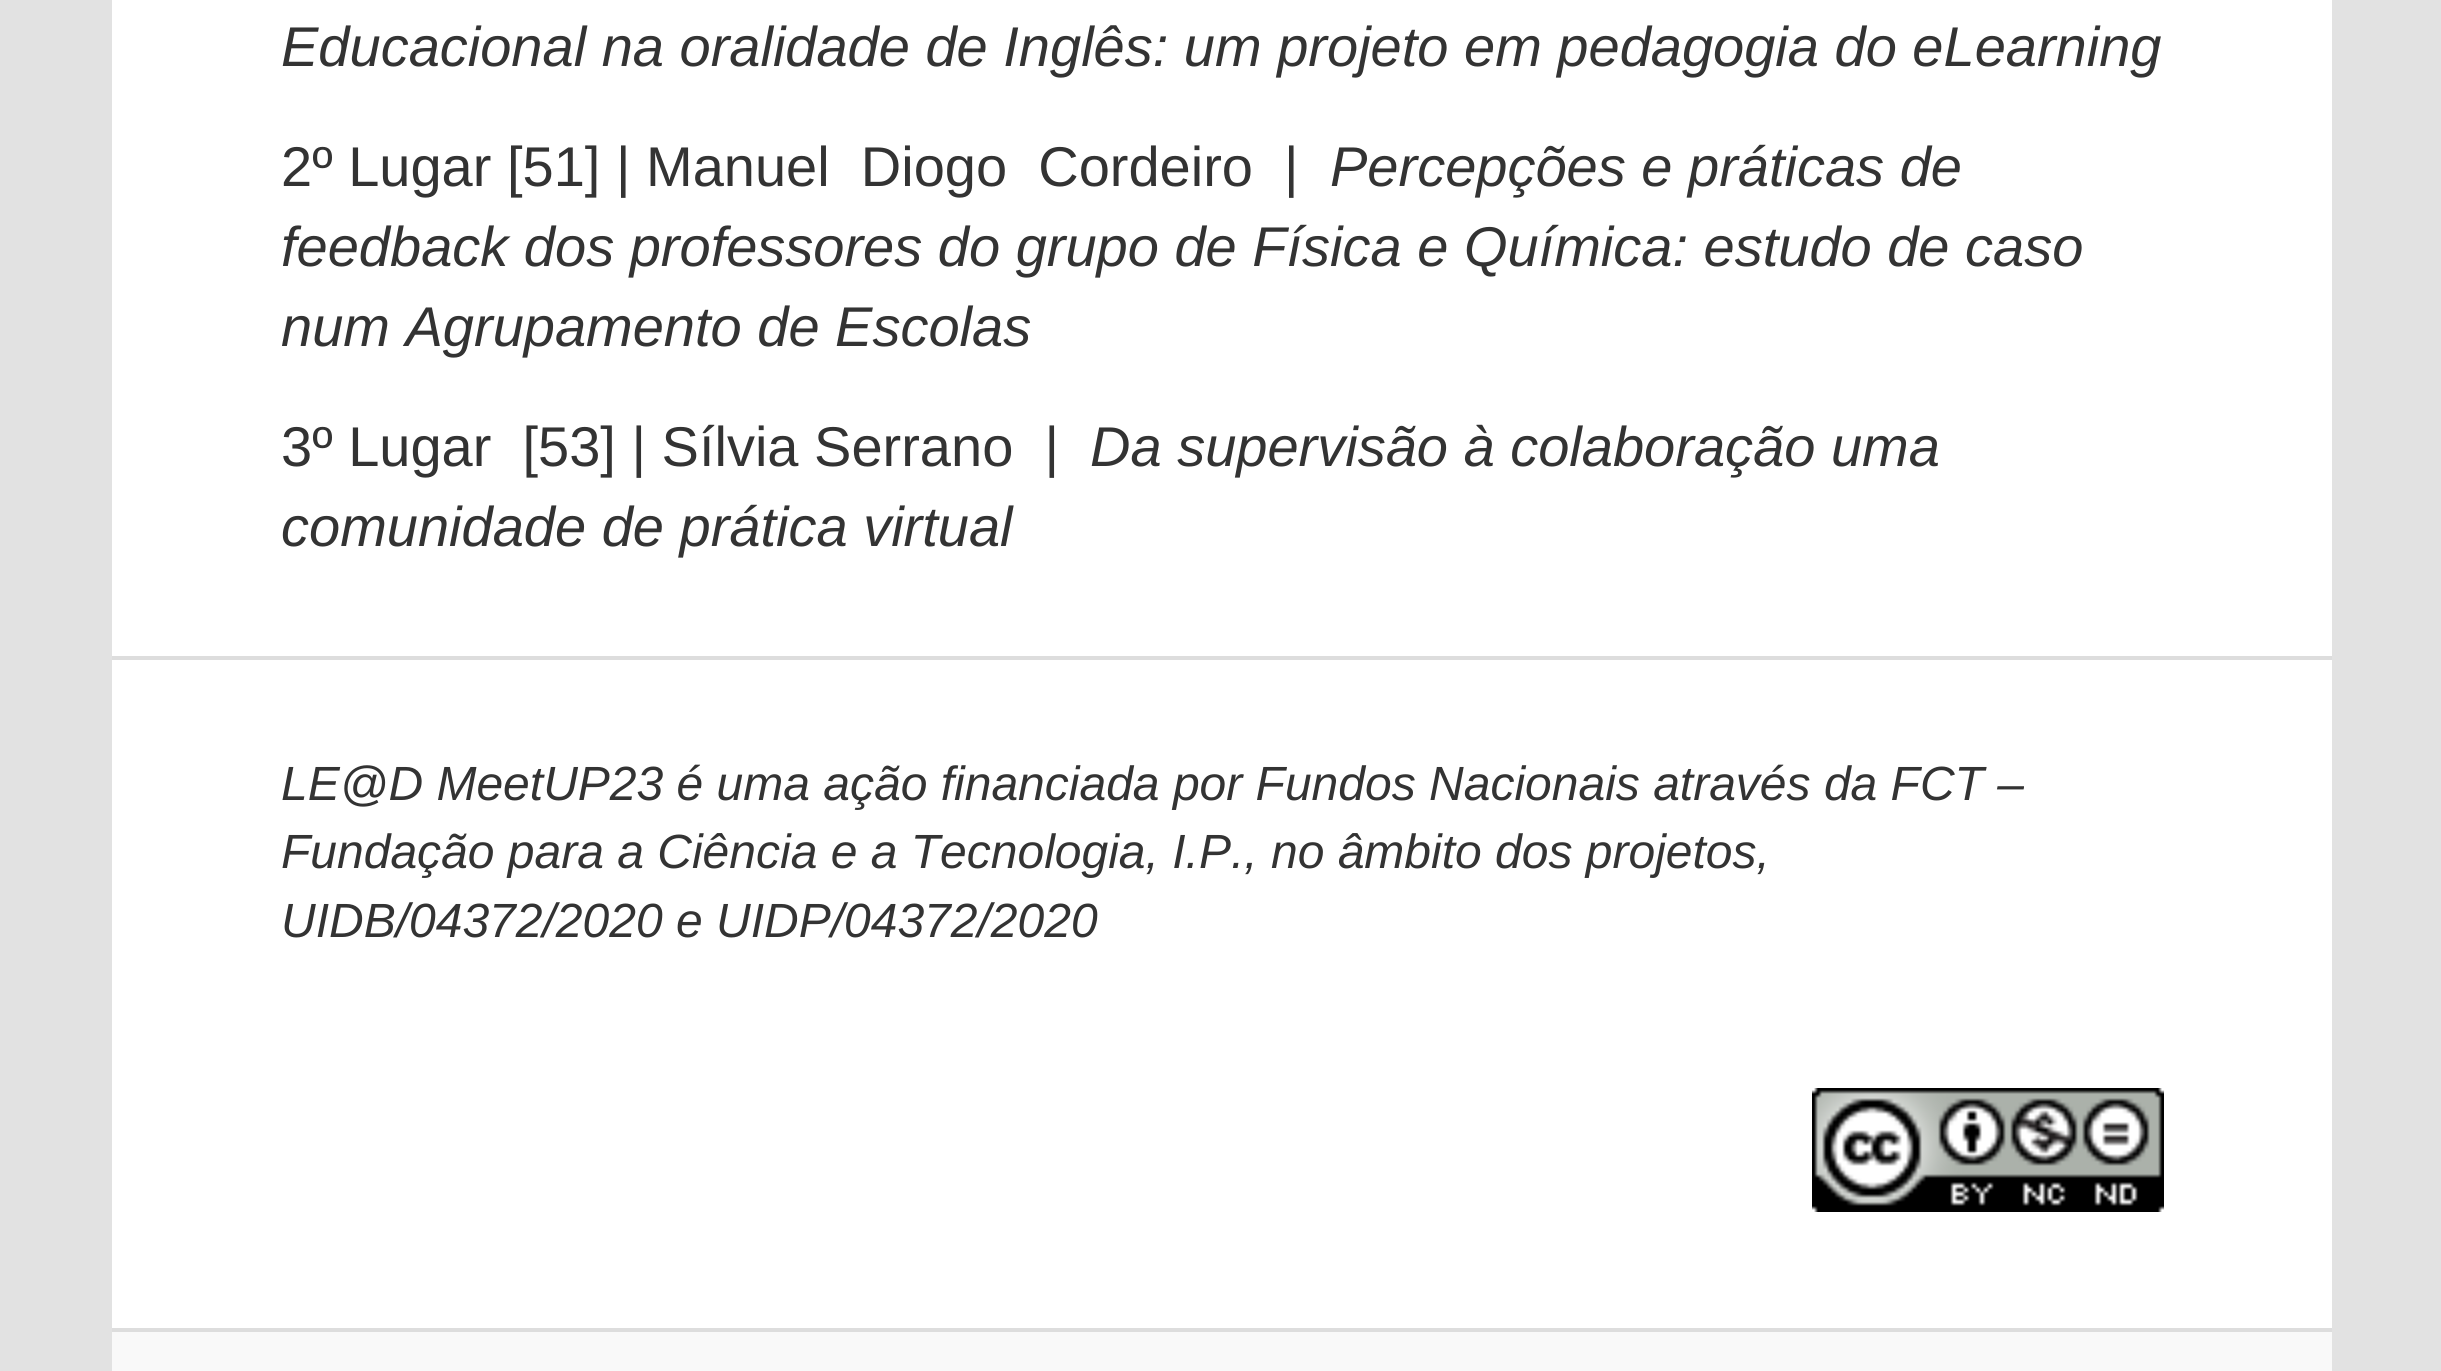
#include <cairo.h>
#include <math.h>
#include <stddef.h>

static cairo_t *ctx;

static void use_color(int r, int g, int b) {
    cairo_set_source_rgb(ctx, r / 255.0, g / 255.0, b / 255.0);
}

static void picture(const char *path, double x, double y, double w, double h) {
    cairo_surface_t *image = cairo_image_surface_create_from_png(path);
    cairo_save(ctx);
    cairo_set_source_surface(ctx, image, x, y);
    cairo_rectangle(ctx, x, y, w, h);
    cairo_fill(ctx);
    cairo_restore(ctx);
    cairo_surface_destroy(image);
}

int main(void) {
    cairo_surface_t *surface = cairo_image_surface_create(CAIRO_FORMAT_RGB24, 2441, 1371);
    ctx = cairo_create(surface);
    cairo_font_options_t *options = cairo_font_options_create();
    cairo_font_options_set_hint_metrics(options, CAIRO_HINT_METRICS_OFF);
    cairo_font_options_set_hint_style(options, CAIRO_HINT_STYLE_NONE);
    cairo_set_font_options(ctx, options);
    cairo_set_miter_limit(ctx, 4);
    use_color(226, 226, 226);
    cairo_paint(ctx);
    use_color(255, 255, 255);
    cairo_rectangle(ctx, 112, 0, 2220, 1328);
    cairo_fill(ctx);
    cairo_select_font_face(ctx, "Liberation Sans", CAIRO_FONT_SLANT_ITALIC, CAIRO_FONT_WEIGHT_NORMAL);
    cairo_set_font_size(ctx, 56);
    use_color(51, 51, 51);
    cairo_move_to(ctx, 281, 66);
    cairo_show_text(ctx, "Educacional na oralidade de Inglês: um projeto em pedagogia do eLearning");
    cairo_select_font_face(ctx, "Liberation Sans", CAIRO_FONT_SLANT_NORMAL, CAIRO_FONT_WEIGHT_NORMAL);
    cairo_move_to(ctx, 281, 186);
    cairo_show_text(ctx, "2º Lugar [51] | Manuel  Diogo  Cordeiro  |");
    cairo_select_font_face(ctx, "Liberation Sans", CAIRO_FONT_SLANT_ITALIC, CAIRO_FONT_WEIGHT_NORMAL);
    cairo_move_to(ctx, 1330, 186);
    cairo_show_text(ctx, "Percepções e práticas de");
    cairo_move_to(ctx, 281, 266);
    cairo_show_text(ctx, "feedback dos professores do grupo de Física e Química: estudo de caso");
    cairo_move_to(ctx, 281, 346);
    cairo_show_text(ctx, "num Agrupamento de Escolas");
    cairo_select_font_face(ctx, "Liberation Sans", CAIRO_FONT_SLANT_NORMAL, CAIRO_FONT_WEIGHT_NORMAL);
    cairo_move_to(ctx, 281, 466);
    cairo_show_text(ctx, "3º Lugar  [53] | Sílvia Serrano  |");
    cairo_select_font_face(ctx, "Liberation Sans", CAIRO_FONT_SLANT_ITALIC, CAIRO_FONT_WEIGHT_NORMAL);
    cairo_move_to(ctx, 1090, 466);
    cairo_show_text(ctx, "Da supervisão à colaboração uma");
    cairo_move_to(ctx, 281, 546);
    cairo_show_text(ctx, "comunidade de prática virtual");
    use_color(221, 221, 221);
    cairo_rectangle(ctx, 112, 656, 2220, 4);
    cairo_fill(ctx);
    cairo_set_font_size(ctx, 48);
    use_color(51, 51, 51);
    cairo_move_to(ctx, 281, 800);
    cairo_show_text(ctx, "LE@D MeetUP23 é uma ação financiada por Fundos Nacionais através da FCT –");
    cairo_move_to(ctx, 281, 868);
    cairo_show_text(ctx, "Fundação para a Ciência e a Tecnologia, I.P., no âmbito dos projetos,");
    cairo_move_to(ctx, 281, 937);
    cairo_show_text(ctx, "UIDB/04372/2020 e UIDP/04372/2020");
    picture("img1.png", 1812, 1088, 352, 124);
    use_color(249, 249, 249);
    cairo_rectangle(ctx, 112, 1332, 2220, 39);
    cairo_fill(ctx);
    use_color(221, 221, 221);
    cairo_rectangle(ctx, 112, 1328, 2220, 4);
    cairo_fill(ctx);
    cairo_surface_write_to_png(surface, "result.png");
    cairo_font_options_destroy(options);
    cairo_destroy(ctx);
    cairo_surface_destroy(surface);
    return 0;
}
